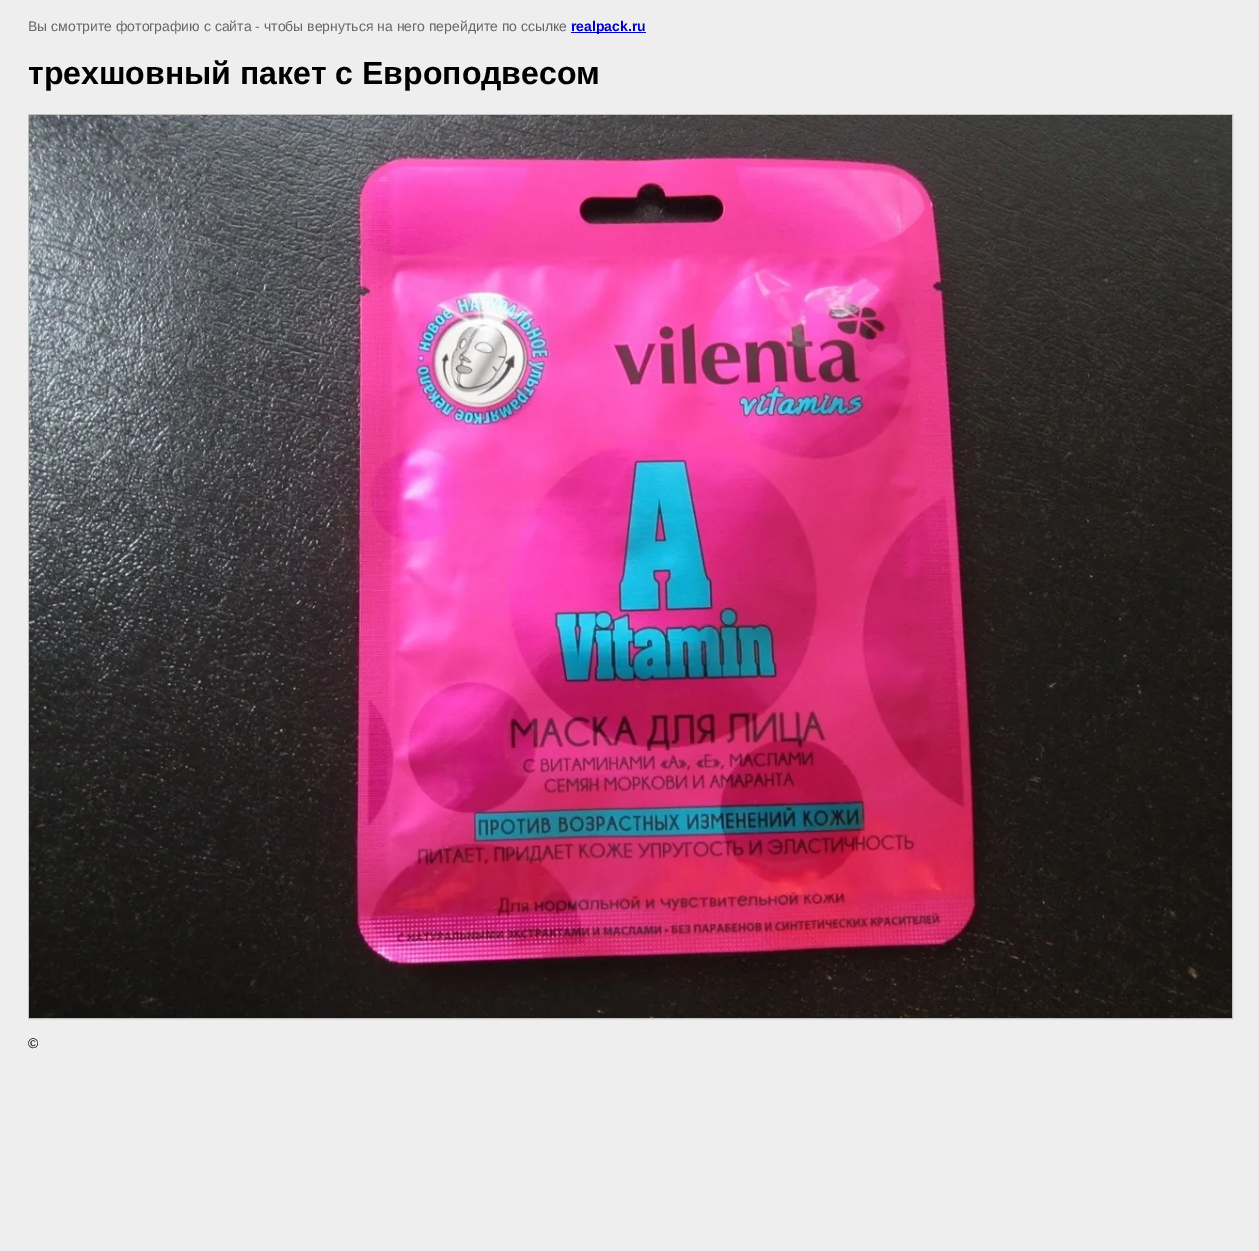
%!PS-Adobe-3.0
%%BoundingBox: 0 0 1259 1251
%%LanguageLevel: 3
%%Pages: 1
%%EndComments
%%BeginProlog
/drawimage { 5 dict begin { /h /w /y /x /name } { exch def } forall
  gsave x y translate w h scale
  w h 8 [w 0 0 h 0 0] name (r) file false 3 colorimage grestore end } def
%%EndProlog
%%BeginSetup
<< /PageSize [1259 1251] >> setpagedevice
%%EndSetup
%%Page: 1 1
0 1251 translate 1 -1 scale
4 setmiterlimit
0.933 setgray
0 0 1259 1251 rectfill
0 0 0.8 setrgbcolor
571 32 75 1 rectfill
0.753 setgray
28.5 114.5 1204 904 rectstroke
(images/1.raw) 29 115 1203 903 drawimage
/LiberationSans-Regular [14 0 0 -14 0 0] selectfont
0.4 setgray
28 31 moveto (Вы смотрите фотографию с сайта - чтобы вернуться на него перейдите по ссылке) show
/LiberationSans-Bold [14 0 0 -14 0 0] selectfont
0 0 0.8 setrgbcolor
571 31 moveto (realpack.ru) show
/LiberationSans-Bold [32 0 0 -32 0 0] selectfont
0 setgray
28 84 moveto (трехшовный пакет с Европодвесом) show
/LiberationSans-Regular [14 0 0 -14 0 0] selectfont
28 1048 moveto (©) show
showpage
%%EOF
